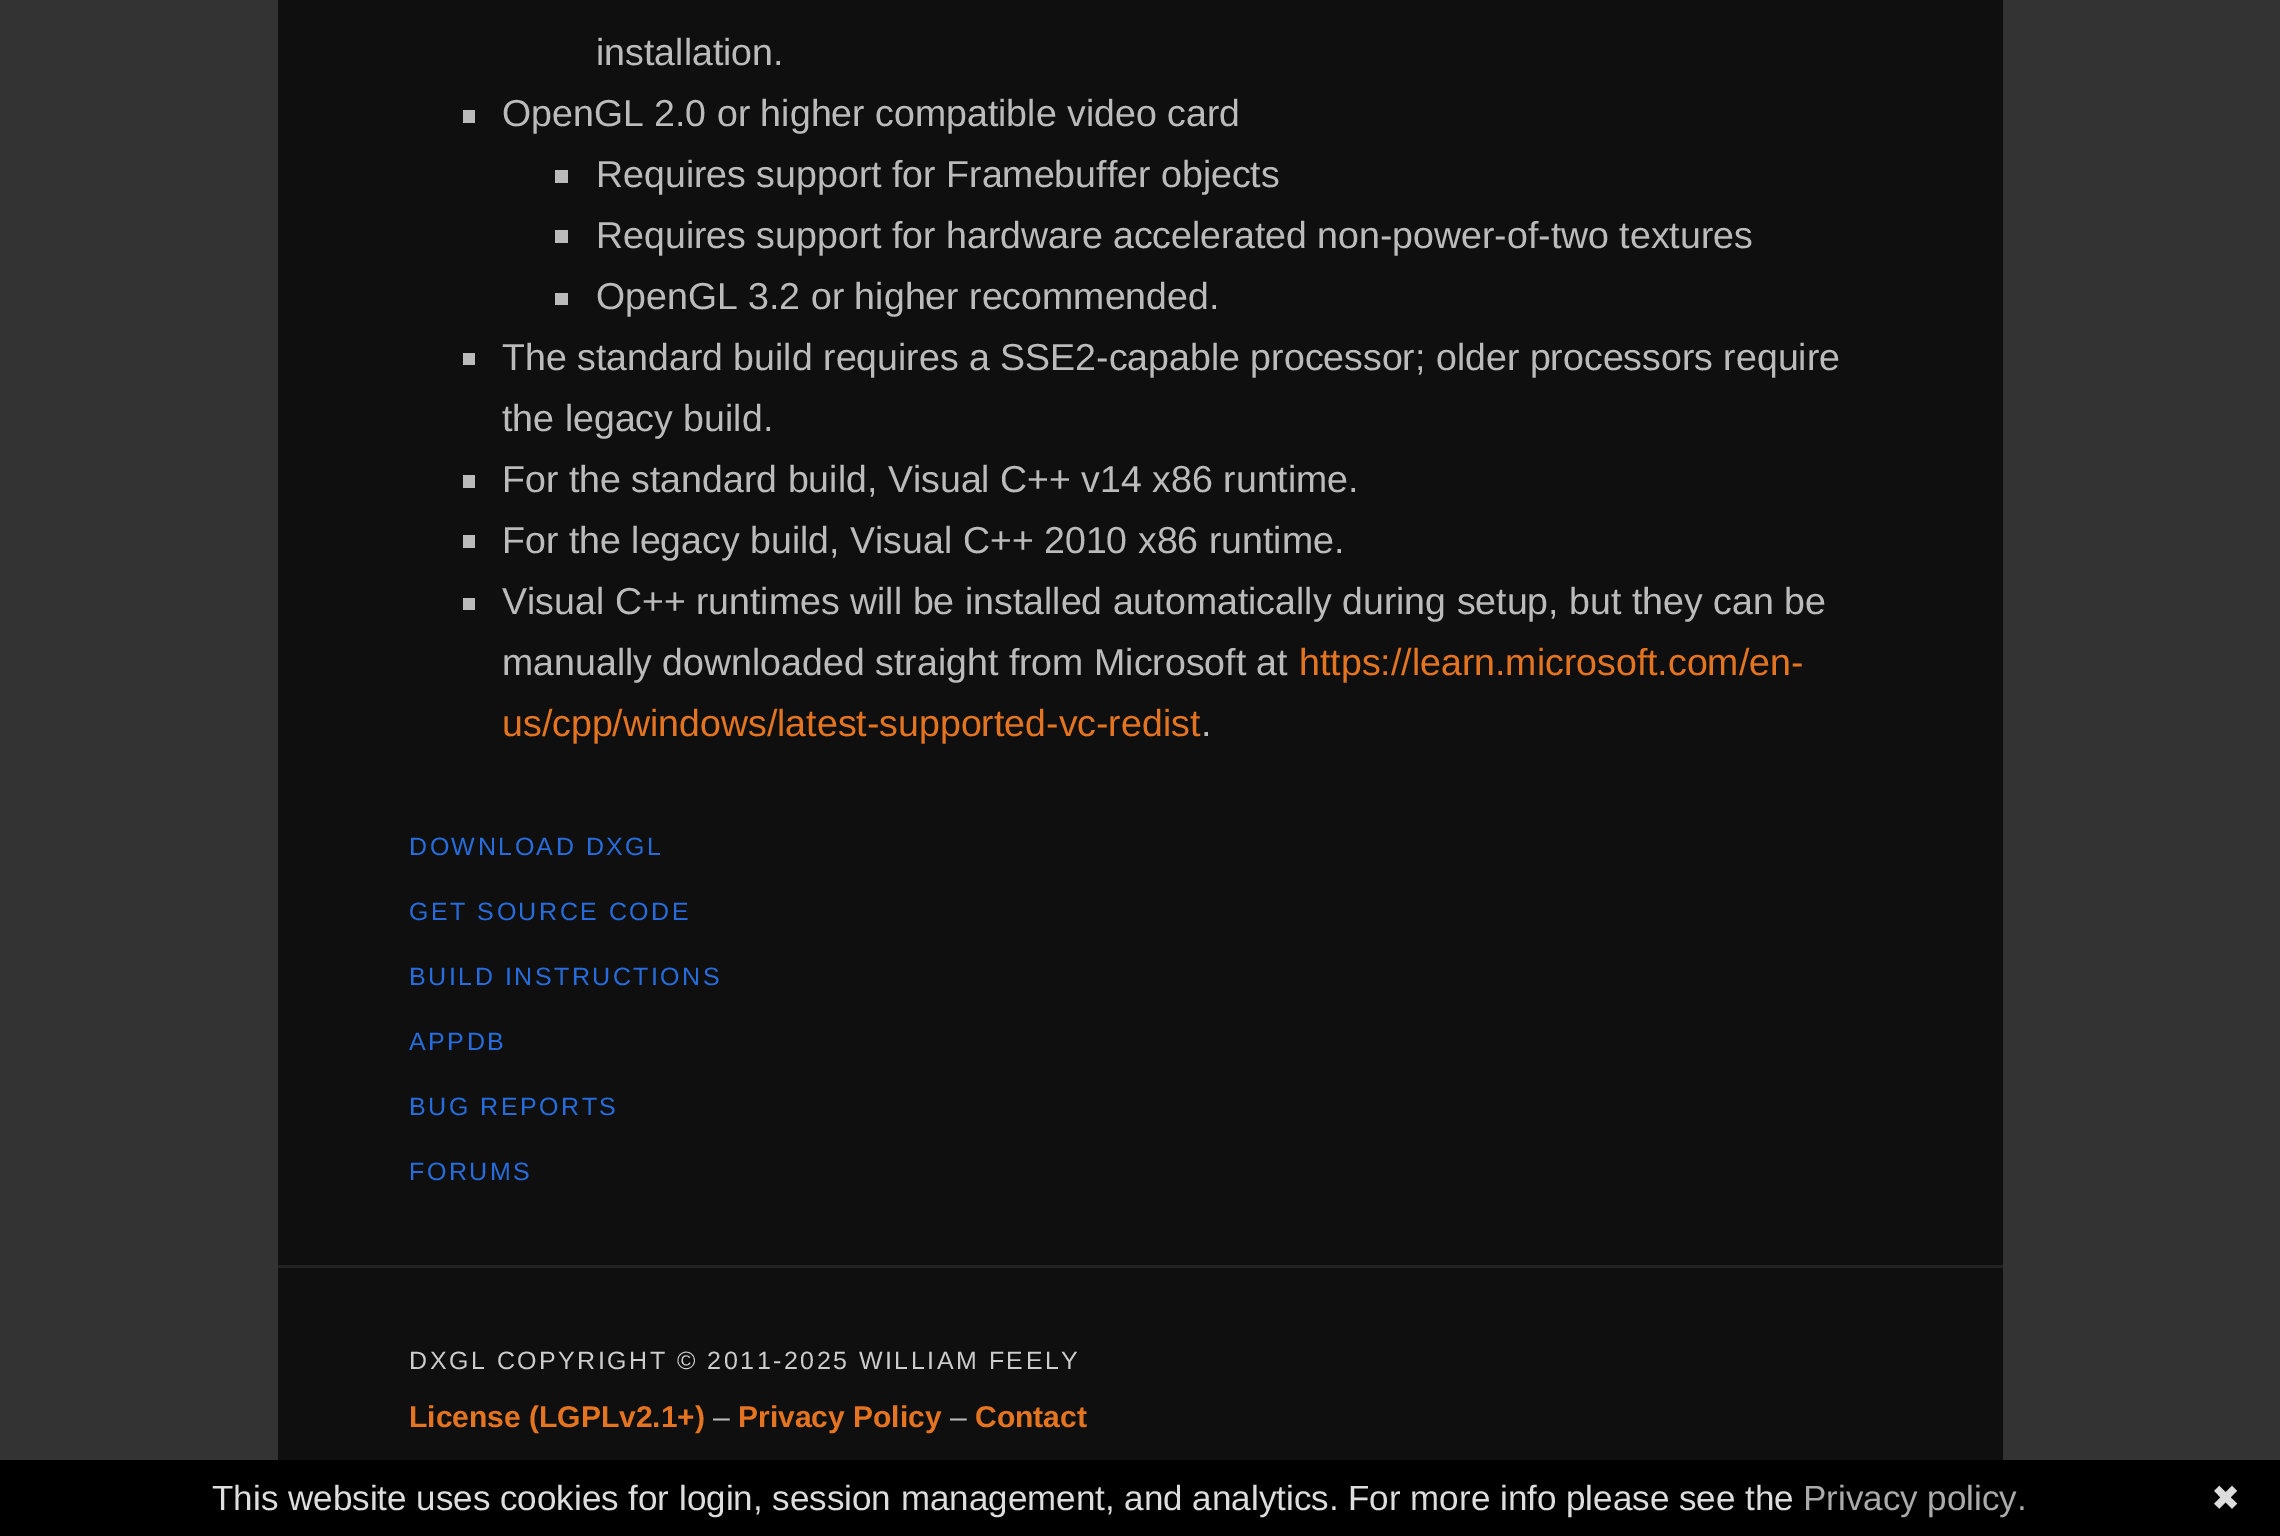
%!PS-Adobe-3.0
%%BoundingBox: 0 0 2280 1536
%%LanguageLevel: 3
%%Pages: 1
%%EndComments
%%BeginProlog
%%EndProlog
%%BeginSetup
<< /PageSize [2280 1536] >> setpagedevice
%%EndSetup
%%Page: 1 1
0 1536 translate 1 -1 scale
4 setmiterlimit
0.2 setgray
0 0 2280 1536 rectfill
0.059 setgray
278 0 1725 1460 rectfill
0.733 setgray
463 110 12 13 rectfill
555 170 13 13 rectfill
555 230 13 13 rectfill
555 293 13 12 rectfill
463 353 12 12 rectfill
463 475 12 13 rectfill
463 535 12 13 rectfill
463 598 12 12 rectfill
0.133 setgray
278 1265 1725 3 rectfill
0 setgray
0 1460 2280 76 rectfill
/LiberationSans-Regular [37.5 0 0 -37.5 0 0] selectfont
0.733 setgray
596 65 moveto (installation.) show
502 126 moveto (OpenGL 2.0 or higher compatible video card) show
596 187 moveto (Requires support for Framebuffer objects) show
596 248 moveto (Requires support for hardware accelerated non-power-of-two textures) show
596 309 moveto (OpenGL 3.2 or higher recommended.) show
502 370 moveto (The standard build requires a SSE2-capable processor; older processors require) show
502 431 moveto (the legacy build.) show
502 492 moveto (For the standard build, Visual C++ v14 x86 runtime.) show
502 553 moveto (For the legacy build, Visual C++ 2010 x86 runtime.) show
502 614 moveto (Visual C++ runtimes will be installed automatically during setup, but they can be) show
502 675 moveto (manually downloaded straight from Microsoft at) show
0.894 0.455 0.122 setrgbcolor
1299 675 moveto (https://learn.microsoft.com/en-) show
502 736 moveto (us/cpp/windows/latest-supported-vc-redist) show
0.733 setgray
1201 736 moveto (.) show
/LiberationSans-Regular [25 0 0 -25 0 0] selectfont
0.153 0.424 0.863 setrgbcolor
409 855 moveto 2.5 0 (DOWNLOAD DXGL) ashow
409 920 moveto 2.5 0 (GET SOURCE CODE) ashow
409 985 moveto 2.5 0 (BUILD INSTRUCTIONS) ashow
409 1050 moveto 2.5 0 (APPDB) ashow
409 1115 moveto 2.5 0 (BUG REPORTS) ashow
409 1180 moveto 2.5 0 (FORUMS) ashow
0.8 setgray
409 1369 moveto 2.5 0 (DXGL COPYRIGHT © 2011-2025 WILLIAM FEELY) ashow
/LiberationSans-Bold [30 0 0 -30 0 0] selectfont
0.894 0.455 0.122 setrgbcolor
409 1427 moveto (License \(LGPLv2.1+\)) show
/LiberationSans-Regular [30 0 0 -30 0 0] selectfont
0.733 setgray
713 1427 moveto (–) show
/LiberationSans-Bold [30 0 0 -30 0 0] selectfont
0.894 0.455 0.122 setrgbcolor
738 1427 moveto (Privacy Policy) show
/LiberationSans-Regular [30 0 0 -30 0 0] selectfont
0.733 setgray
950 1427 moveto (–) show
/LiberationSans-Bold [30 0 0 -30 0 0] selectfont
0.894 0.455 0.122 setrgbcolor
975 1427 moveto (Contact) show
/LiberationSans-Regular [35 0 0 -35 0 0] selectfont
0.867 setgray
212 1510 moveto (This website uses cookies for login, session management, and analytics. For more info please see the) show
0.667 setgray
1803 1510 moveto (Privacy policy.) show
/DejaVuSans-Regular [35 0 0 -35 0 0] selectfont
0.867 setgray
2211 1510 moveto (✖) show
showpage
%%EOF
